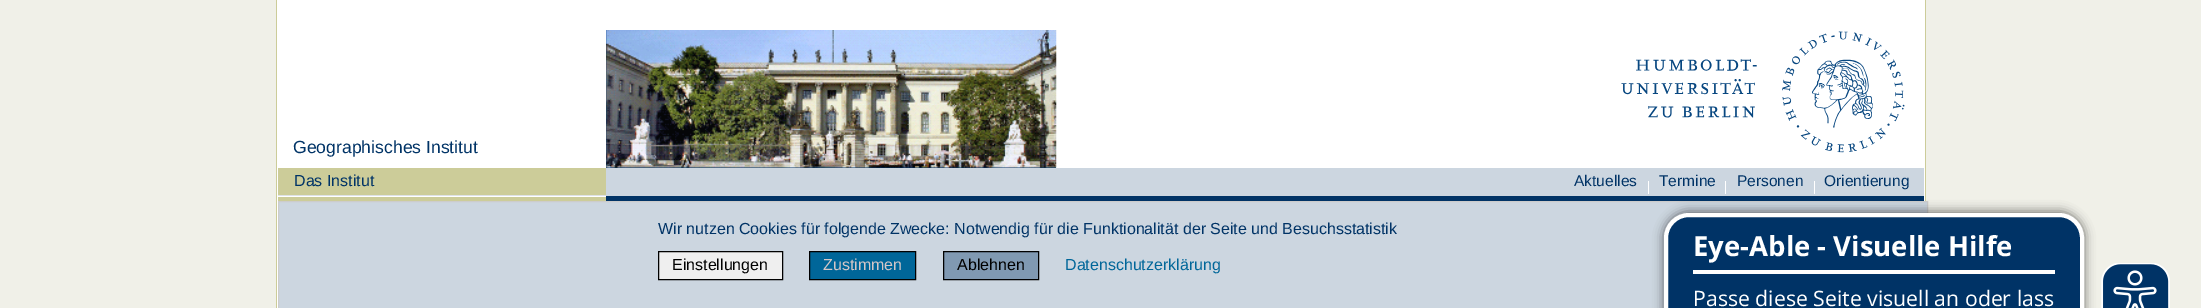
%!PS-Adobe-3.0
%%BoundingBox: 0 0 2201 308
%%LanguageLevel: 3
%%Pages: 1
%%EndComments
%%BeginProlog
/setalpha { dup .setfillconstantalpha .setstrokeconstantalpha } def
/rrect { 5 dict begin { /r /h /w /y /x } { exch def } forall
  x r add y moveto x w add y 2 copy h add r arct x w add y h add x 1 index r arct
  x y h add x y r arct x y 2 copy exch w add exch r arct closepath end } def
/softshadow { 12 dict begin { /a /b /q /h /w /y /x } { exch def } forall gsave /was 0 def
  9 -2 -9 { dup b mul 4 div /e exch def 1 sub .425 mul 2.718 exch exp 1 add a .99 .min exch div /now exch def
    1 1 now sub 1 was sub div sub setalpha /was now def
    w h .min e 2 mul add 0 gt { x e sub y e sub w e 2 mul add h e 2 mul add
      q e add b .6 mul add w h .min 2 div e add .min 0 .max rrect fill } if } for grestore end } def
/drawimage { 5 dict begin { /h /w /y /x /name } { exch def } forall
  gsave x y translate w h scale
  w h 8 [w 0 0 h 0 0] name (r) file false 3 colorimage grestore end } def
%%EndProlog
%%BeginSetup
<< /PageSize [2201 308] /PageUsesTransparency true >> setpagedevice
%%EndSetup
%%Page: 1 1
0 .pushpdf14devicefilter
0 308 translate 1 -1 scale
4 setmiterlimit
0.941 0.941 0.91 setrgbcolor
0 0 2201 308 rectfill
1 setgray
277 0 1648 308 rectfill
0 0.2 0.4 setrgbcolor
606 30 450 138 rectfill
(images/1.raw) 606 30 451 138 drawimage
(images/2.raw) 1621 31 284 122 drawimage
0.8 0.8 0.6 setrgbcolor
1925 0 1 201 rectfill
276 0 1 308 rectfill
278 168 328 27 rectfill
278 197 328 4 rectfill
0.871 0.886 0.902 setrgbcolor
278 195 328 1 rectfill
0.8 0.839 0.878 setrgbcolor
606 168 1318 28 rectfill
1 setgray
1648 181 1 13 rectfill
1725 181 1 13 rectfill
1814 181 1 13 rectfill
0 0.2 0.4 setrgbcolor
606 196 1318 5 rectfill
0.8 0.839 0.878 setrgbcolor
newpath 278.5 201.5 moveto 1927.5 201.5 lineto 1927.5 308.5 lineto 278.5 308.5 lineto closepath gsave fill grestore
0.8 setgray
stroke
0.937 setgray
newpath 658.5 251.5 moveto 782.5 251.5 lineto 782.5 279.5 lineto 658.5 279.5 lineto closepath gsave fill grestore
0 setgray
stroke
0 0.4 0.6 setrgbcolor
newpath 809.5 251.5 moveto 915.5 251.5 lineto 915.5 279.5 lineto 809.5 279.5 lineto closepath gsave fill grestore
0 setgray
stroke
0.502 0.6 0.698 setrgbcolor
newpath 943.5 251.5 moveto 1038.5 251.5 lineto 1038.5 279.5 lineto 943.5 279.5 lineto closepath gsave fill grestore
0 setgray
stroke
1663 211 422 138 26 5 0.5 softshadow
0 0.2 0.4 setrgbcolor
1666 215 416 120 23 rrect gsave fill grestore
1 setgray
4 setlinewidth
stroke
1693 270 362 4 rectfill
(images/3.raw) 2101 263 69 45 drawimage
/LiberationSans-Regular [17.6 0 0 -17.6 0 0] selectfont
0 0.2 0.4 setrgbcolor
293 153 moveto (Geographisches Institut) show
/LiberationSans-Regular [16 0 0 -16 0 0] selectfont
294 186 moveto (Das Institut) show
/LiberationSans-Regular [15.5 0 0 -15.5 0 0] selectfont
1574 186 moveto (Aktuelles) show
1659 186 moveto (Termine) show
1737 186 moveto (Personen) show
1824 186 moveto (Orientierung) show
/LiberationSans-Regular [16 0 0 -16 0 0] selectfont
658 234 moveto (Wir nutzen Cookies für folgende Zwecke: Notwendig für die Funktionalität der Seite und Besuchsstatistik) show
0 setgray
672 270 moveto (Einstellungen) show
0.835 0.78 0.78 setrgbcolor
823 270 moveto (Zustimmen) show
0 setgray
957 270 moveto (Ablehnen) show
0 0.4 0.6 setrgbcolor
1065 270 moveto (Datenschutzerklärung) show
/OpenSans-Bold [27.5 0 0 -27.5 0 0] selectfont
1 setgray
1693 256 moveto (Eye-Able - Visuelle Hilfe) show
/OpenSans-Regular [21.25 0 0 -21.25 0 0] selectfont
1693 306 moveto (Passe diese Seite visuell an oder lass) show
.poppdf14devicefilter showpage
%%EOF
